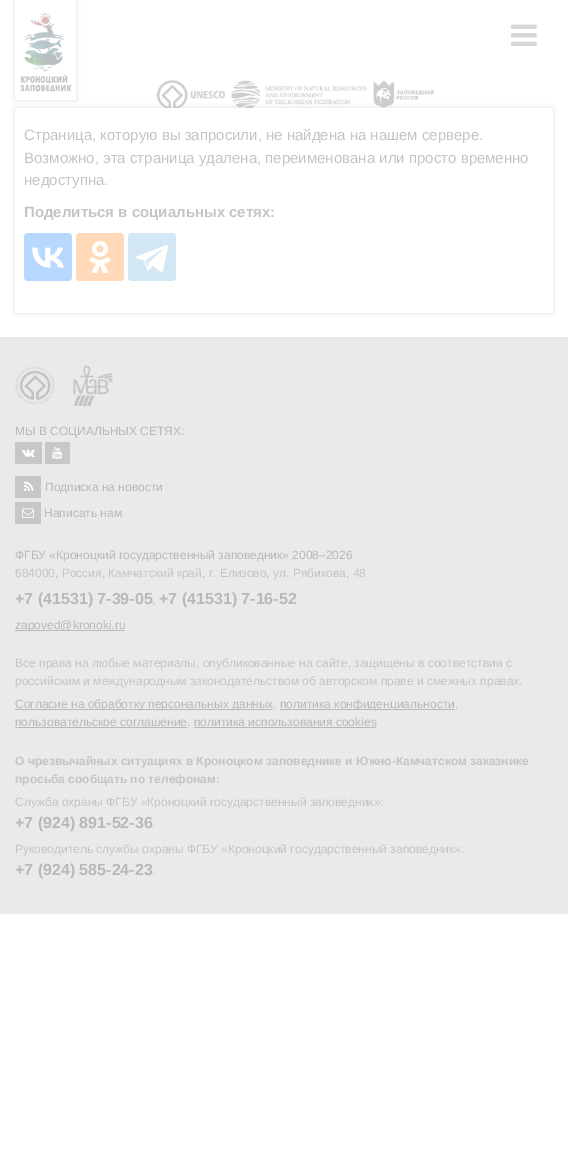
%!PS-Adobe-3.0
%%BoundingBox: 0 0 568 1149
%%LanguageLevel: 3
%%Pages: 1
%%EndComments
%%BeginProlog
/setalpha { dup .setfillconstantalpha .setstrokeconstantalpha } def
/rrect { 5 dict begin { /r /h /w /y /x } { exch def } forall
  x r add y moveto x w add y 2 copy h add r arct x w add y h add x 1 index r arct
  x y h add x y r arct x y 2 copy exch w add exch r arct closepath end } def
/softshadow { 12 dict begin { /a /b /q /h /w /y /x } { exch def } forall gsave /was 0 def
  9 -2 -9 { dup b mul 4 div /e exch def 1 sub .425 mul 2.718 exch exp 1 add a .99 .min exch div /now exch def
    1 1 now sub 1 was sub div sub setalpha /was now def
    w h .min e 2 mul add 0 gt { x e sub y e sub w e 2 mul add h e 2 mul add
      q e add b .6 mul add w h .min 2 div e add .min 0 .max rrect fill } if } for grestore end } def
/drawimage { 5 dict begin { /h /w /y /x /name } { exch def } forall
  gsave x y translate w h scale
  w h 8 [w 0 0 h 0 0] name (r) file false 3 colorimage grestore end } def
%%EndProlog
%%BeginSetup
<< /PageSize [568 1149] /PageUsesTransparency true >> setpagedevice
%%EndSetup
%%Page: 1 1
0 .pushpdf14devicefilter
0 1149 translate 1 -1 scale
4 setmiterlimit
1 setgray
0 0 568 1149 rectfill
(images/3.raw) 156 80 70 28 drawimage
(images/4.raw) 231 80 136 28 drawimage
(images/5.raw) 373 80 61 28 drawimage
0.722 setgray
15 108 538 205 0 2.5 0.5 softshadow
1 setgray
15 108 538 205 rectfill
gsave
newpath 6 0 moveto 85 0 lineto 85 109 lineto 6 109 lineto closepath 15 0 moveto 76 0 lineto 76 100 lineto 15 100 lineto closepath eoclip newpath
0.722 setgray
15 0 61 100 0 2.5 0.5 softshadow
grestore
(images/1.raw) 20 13 52 79 drawimage
(images/2.raw) 511 24 26 22 drawimage
0.722 0.851 1 setrgbcolor
24 233 48 48 4 rrect fill
(images/6.raw) 32 247 33 21 drawimage
1 0.851 0.722 setrgbcolor
76 233 48 48 4 rrect fill
(images/7.raw) 89 241 22 32 drawimage
0.831 0.906 0.961 setrgbcolor
128 233 48 48 4 rrect fill
(images/8.raw) 136 245 32 27 drawimage
0.918 setgray
0 337 568 577 rectfill
(images/9.raw) 15 366 40 39 drawimage
(images/10.raw) 73 365 40 41 drawimage
0.78 setgray
15 442 27 22 rectfill
(images/11.raw) 22 449 13 8 drawimage
45 442 25 22 rectfill
(images/12.raw) 52 446 11 13 drawimage
15 476 26 22 rectfill
(images/13.raw) 24 481 10 10 drawimage
15 502 26 22 rectfill
(images/14.raw) 22 508 12 10 drawimage
0.722 setgray
15 630 110 1 rectfill
15 709 258 1 rectfill
280 709 175 1 rectfill
15 727 172 1 rectfill
194 727 182 1 rectfill
/LiberationSans-Regular [15 0 0 -15 0 0] selectfont
0.769 setgray
24 140 moveto (Страница, которую вы запросили, не найдена на нашем сервере.) show
24 163 moveto (Возможно, эта страница удалена, переименована или просто временно) show
24 185 moveto (недоступна.) show
/LiberationSans-Bold [15 0 0 -15 0 0] selectfont
24 217 moveto (Поделиться в социальных сетях:) show
/LiberationSans-Regular [12 0 0 -12 0 0] selectfont
0.722 setgray
15 435 moveto (МЫ В СОЦИАЛЬНЫХ СЕТЯХ:) show
45 491 moveto (Подписка на новости) show
44 517 moveto (Написать нам) show
15 559 moveto (ФГБУ «Кроноцкий государственный заповедник» 2008–2026) show
0.769 setgray
15 577 moveto (684000, Россия, Камчатский край, г. Елизово, ул. Рябикова, 48) show
/LiberationSans-Bold [16 0 0 -16 0 0] selectfont
0.722 setgray
15 604 moveto (+7 \(41531\) 7-39-05) show
/LiberationSans-Regular [12 0 0 -12 0 0] selectfont
0.769 setgray
152 604 moveto (,) show
/LiberationSans-Bold [16 0 0 -16 0 0] selectfont
0.722 setgray
159 604 moveto (+7 \(41531\) 7-16-52) show
/LiberationSans-Regular [12 0 0 -12 0 0] selectfont
15 629 moveto (zapoved@kronoki.ru) show
0.769 setgray
15 667 moveto (Все права на любые материалы, опубликованные на сайте, защищены в соответствии с) show
15 685 moveto (российским и международным законодательством об авторском праве и смежных правах.) show
0.722 setgray
15 708 moveto (Согласие на обработку персональных данных) show
0.769 setgray
273 708 moveto (,) show
0.722 setgray
280 708 moveto (политика конфиденциальности) show
0.769 setgray
455 708 moveto (,) show
0.722 setgray
15 726 moveto (пользовательское соглашение) show
0.769 setgray
187 726 moveto (,) show
0.722 setgray
194 726 moveto (политика использования cookies) show
/LiberationSans-Bold [12 0 0 -12 0 0] selectfont
0.769 setgray
15 765 moveto (О чрезвычайных ситуациях в Кроноцком заповеднике и Южно-Камчатском заказнике) show
15 783 moveto (просьба сообщать по телефонам:) show
/LiberationSans-Regular [12 0 0 -12 0 0] selectfont
15 806 moveto (Служба охраны ФГБУ «Кроноцкий государственный заповедник»:) show
/LiberationSans-Bold [16 0 0 -16 0 0] selectfont
0.722 setgray
15 828 moveto (+7 \(924\) 891-52-36) show
/LiberationSans-Regular [12 0 0 -12 0 0] selectfont
0.769 setgray
152 828 moveto (.) show
15 853 moveto (Руководитель службы охраны ФГБУ «Кроноцкий государственный заповедник»:) show
/LiberationSans-Bold [16 0 0 -16 0 0] selectfont
0.722 setgray
15 875 moveto (+7 \(924\) 585-24-23) show
/LiberationSans-Regular [12 0 0 -12 0 0] selectfont
0.769 setgray
152 875 moveto (.) show
.poppdf14devicefilter showpage
%%EOF
